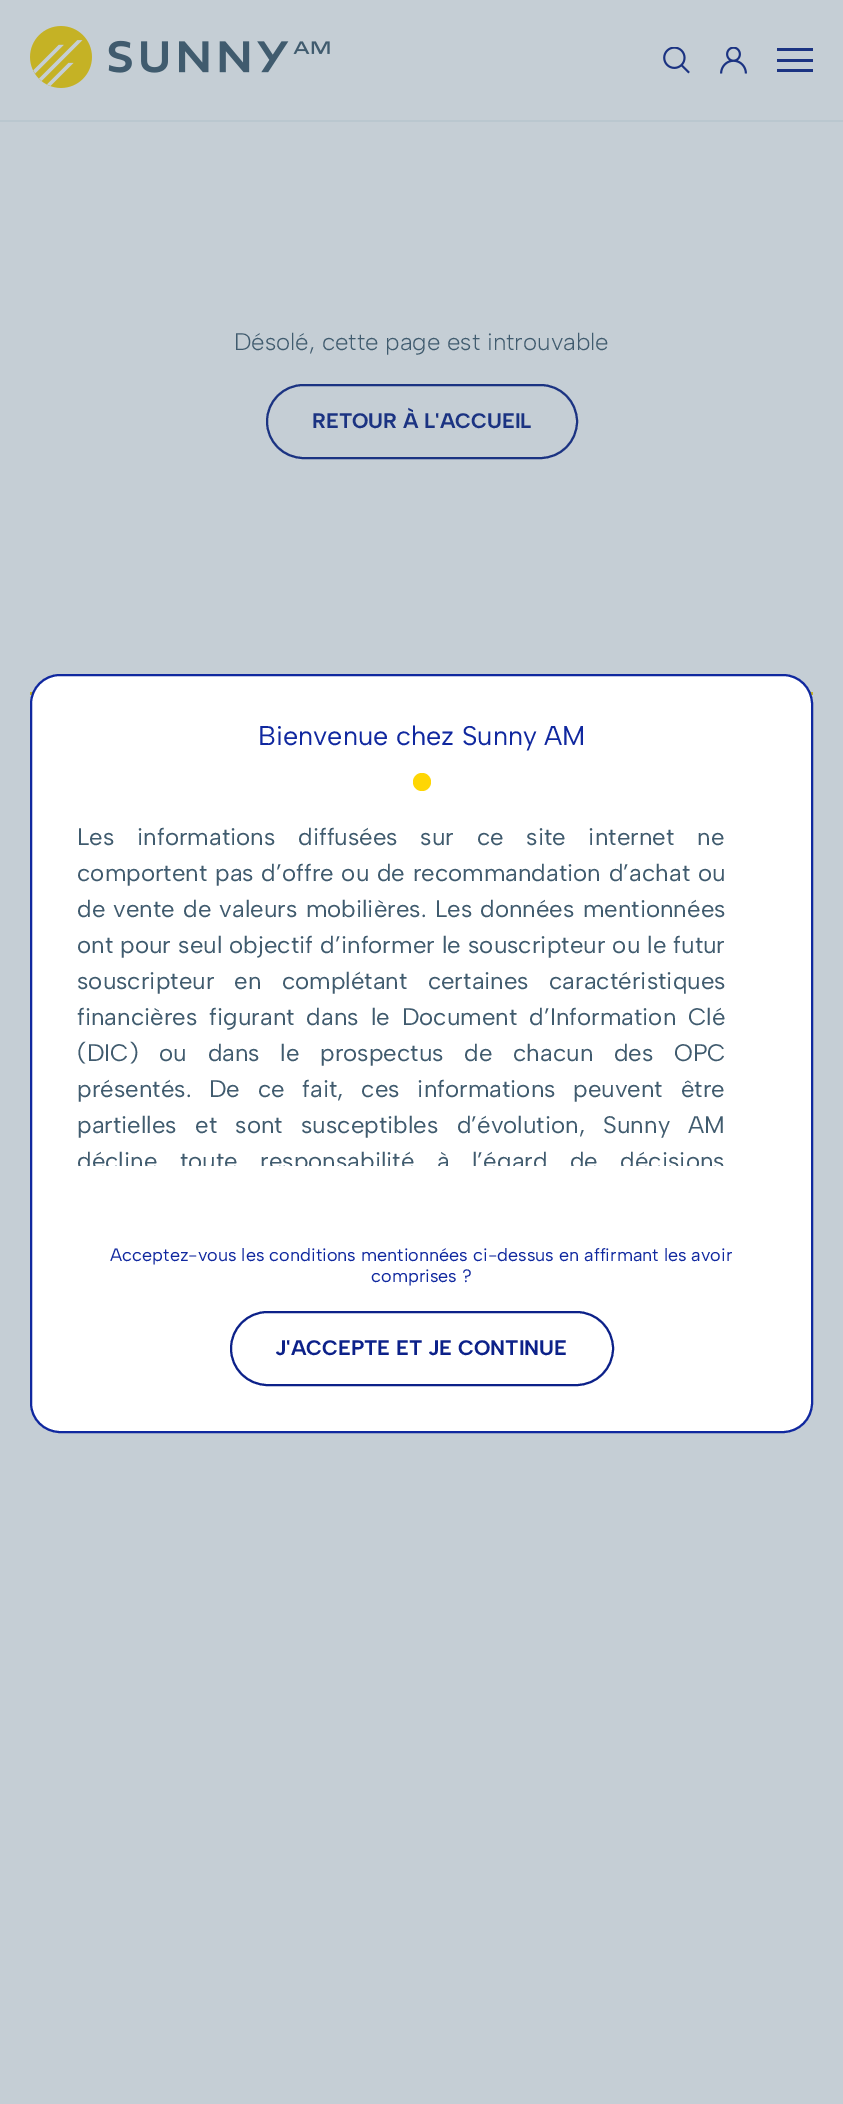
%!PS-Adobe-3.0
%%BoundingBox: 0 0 843 2104
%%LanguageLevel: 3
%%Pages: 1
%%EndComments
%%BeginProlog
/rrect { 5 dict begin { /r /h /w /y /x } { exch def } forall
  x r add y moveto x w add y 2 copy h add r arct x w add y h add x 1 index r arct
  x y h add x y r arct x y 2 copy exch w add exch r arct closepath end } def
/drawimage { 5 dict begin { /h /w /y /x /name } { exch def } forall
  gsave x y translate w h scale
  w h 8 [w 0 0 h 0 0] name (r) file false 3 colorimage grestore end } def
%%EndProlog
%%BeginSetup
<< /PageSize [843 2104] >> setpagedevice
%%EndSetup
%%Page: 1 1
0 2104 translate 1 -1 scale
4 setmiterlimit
0.773 0.808 0.835 setrgbcolor
0 0 843 2104 rectfill
(images/1.raw) 30 26 300 62 drawimage
(images/2.raw) 663 47 27 27 drawimage
(images/3.raw) 720 47 27 27 drawimage
0.106 0.2 0.51 setrgbcolor
777 48 36 3 rectfill
777 59 36 3 rectfill
777 69 36 3 rectfill
0.729 0.78 0.812 setrgbcolor
0 120 843 2 rectfill
0.106 0.2 0.51 setrgbcolor
2 setlinewidth
267 385 310 73 36.5 rrect stroke
0.773 0.698 0.145 setrgbcolor
30 692 783 3 rectfill
1 setgray
31 675 781 757 29 rrect gsave fill grestore
0.063 0.157 0.624 setrgbcolor
stroke
0.996 0.839 0.016 setrgbcolor
newpath 422 782 9 0 360 arc closepath fill
0.047 0.129 0.537 setrgbcolor
231 1312 382 73 36.5 rrect stroke
/AlbertSans-Light [24 0 0 -24 0 0] selectfont
0.251 0.357 0.431 setrgbcolor
234 350 moveto (Désolé, cette page est introuvable) show
/AlbertSans-Bold [21 0 0 -21 0 0] selectfont
0.106 0.2 0.51 setrgbcolor
312 428 moveto (RETOUR À L'ACCUEIL) show
/AlbertSans-Regular [27 0 0 -27 0 0] selectfont
0.063 0.157 0.624 setrgbcolor
258 745 moveto (Bienvenue chez Sunny AM) show
/AlbertSans-Regular [24 0 0 -24 0 0] selectfont
0.251 0.357 0.431 setrgbcolor
77 845 moveto 16 0 32 (Les informations diffusées sur ce site internet ne) widthshow
77 881 moveto 1 0 32 (comportent pas d’offre ou de recommandation d’achat ou) widthshow
77 917 moveto 1.5 0 32 (de vente de valeurs mobilières. Les données mentionnées) widthshow
77 953 moveto 0.4 0 32 (ont pour seul objectif d’informer le souscripteur ou le futur) widthshow
77 989 moveto 13.5 0 32 (souscripteur en complétant certaines caractéristiques) widthshow
77 1025 moveto 5.25 0 32 (financières figurant dans le Document d’Information Clé) widthshow
77 1061 moveto 14 0 32 (\(DIC\) ou dans le prospectus de chacun des OPC) widthshow
77 1097 moveto 11 0 32 (présentés. De ce fait, ces informations peuvent être) widthshow
77 1133 moveto 11.5 0 32 (partielles et sont susceptibles d’évolution, Sunny AM) widthshow
gsave
77 821 690 345 rectclip
77 1169 moveto 15.75 0 32 (décline toute responsabilité à l’égard de décisions) widthshow
grestore
/AlbertSans-Regular [18 0 0 -18 0 0] selectfont
0.063 0.157 0.624 setrgbcolor
110 1261 moveto (Acceptez-vous les conditions mentionnées ci-dessus en affirmant les avoir) show
371 1282 moveto (comprises ?) show
/AlbertSans-Bold [21 0 0 -21 0 0] selectfont
0.047 0.129 0.537 setrgbcolor
275 1355 moveto (J'ACCEPTE ET JE CONTINUE) show
showpage
%%EOF
